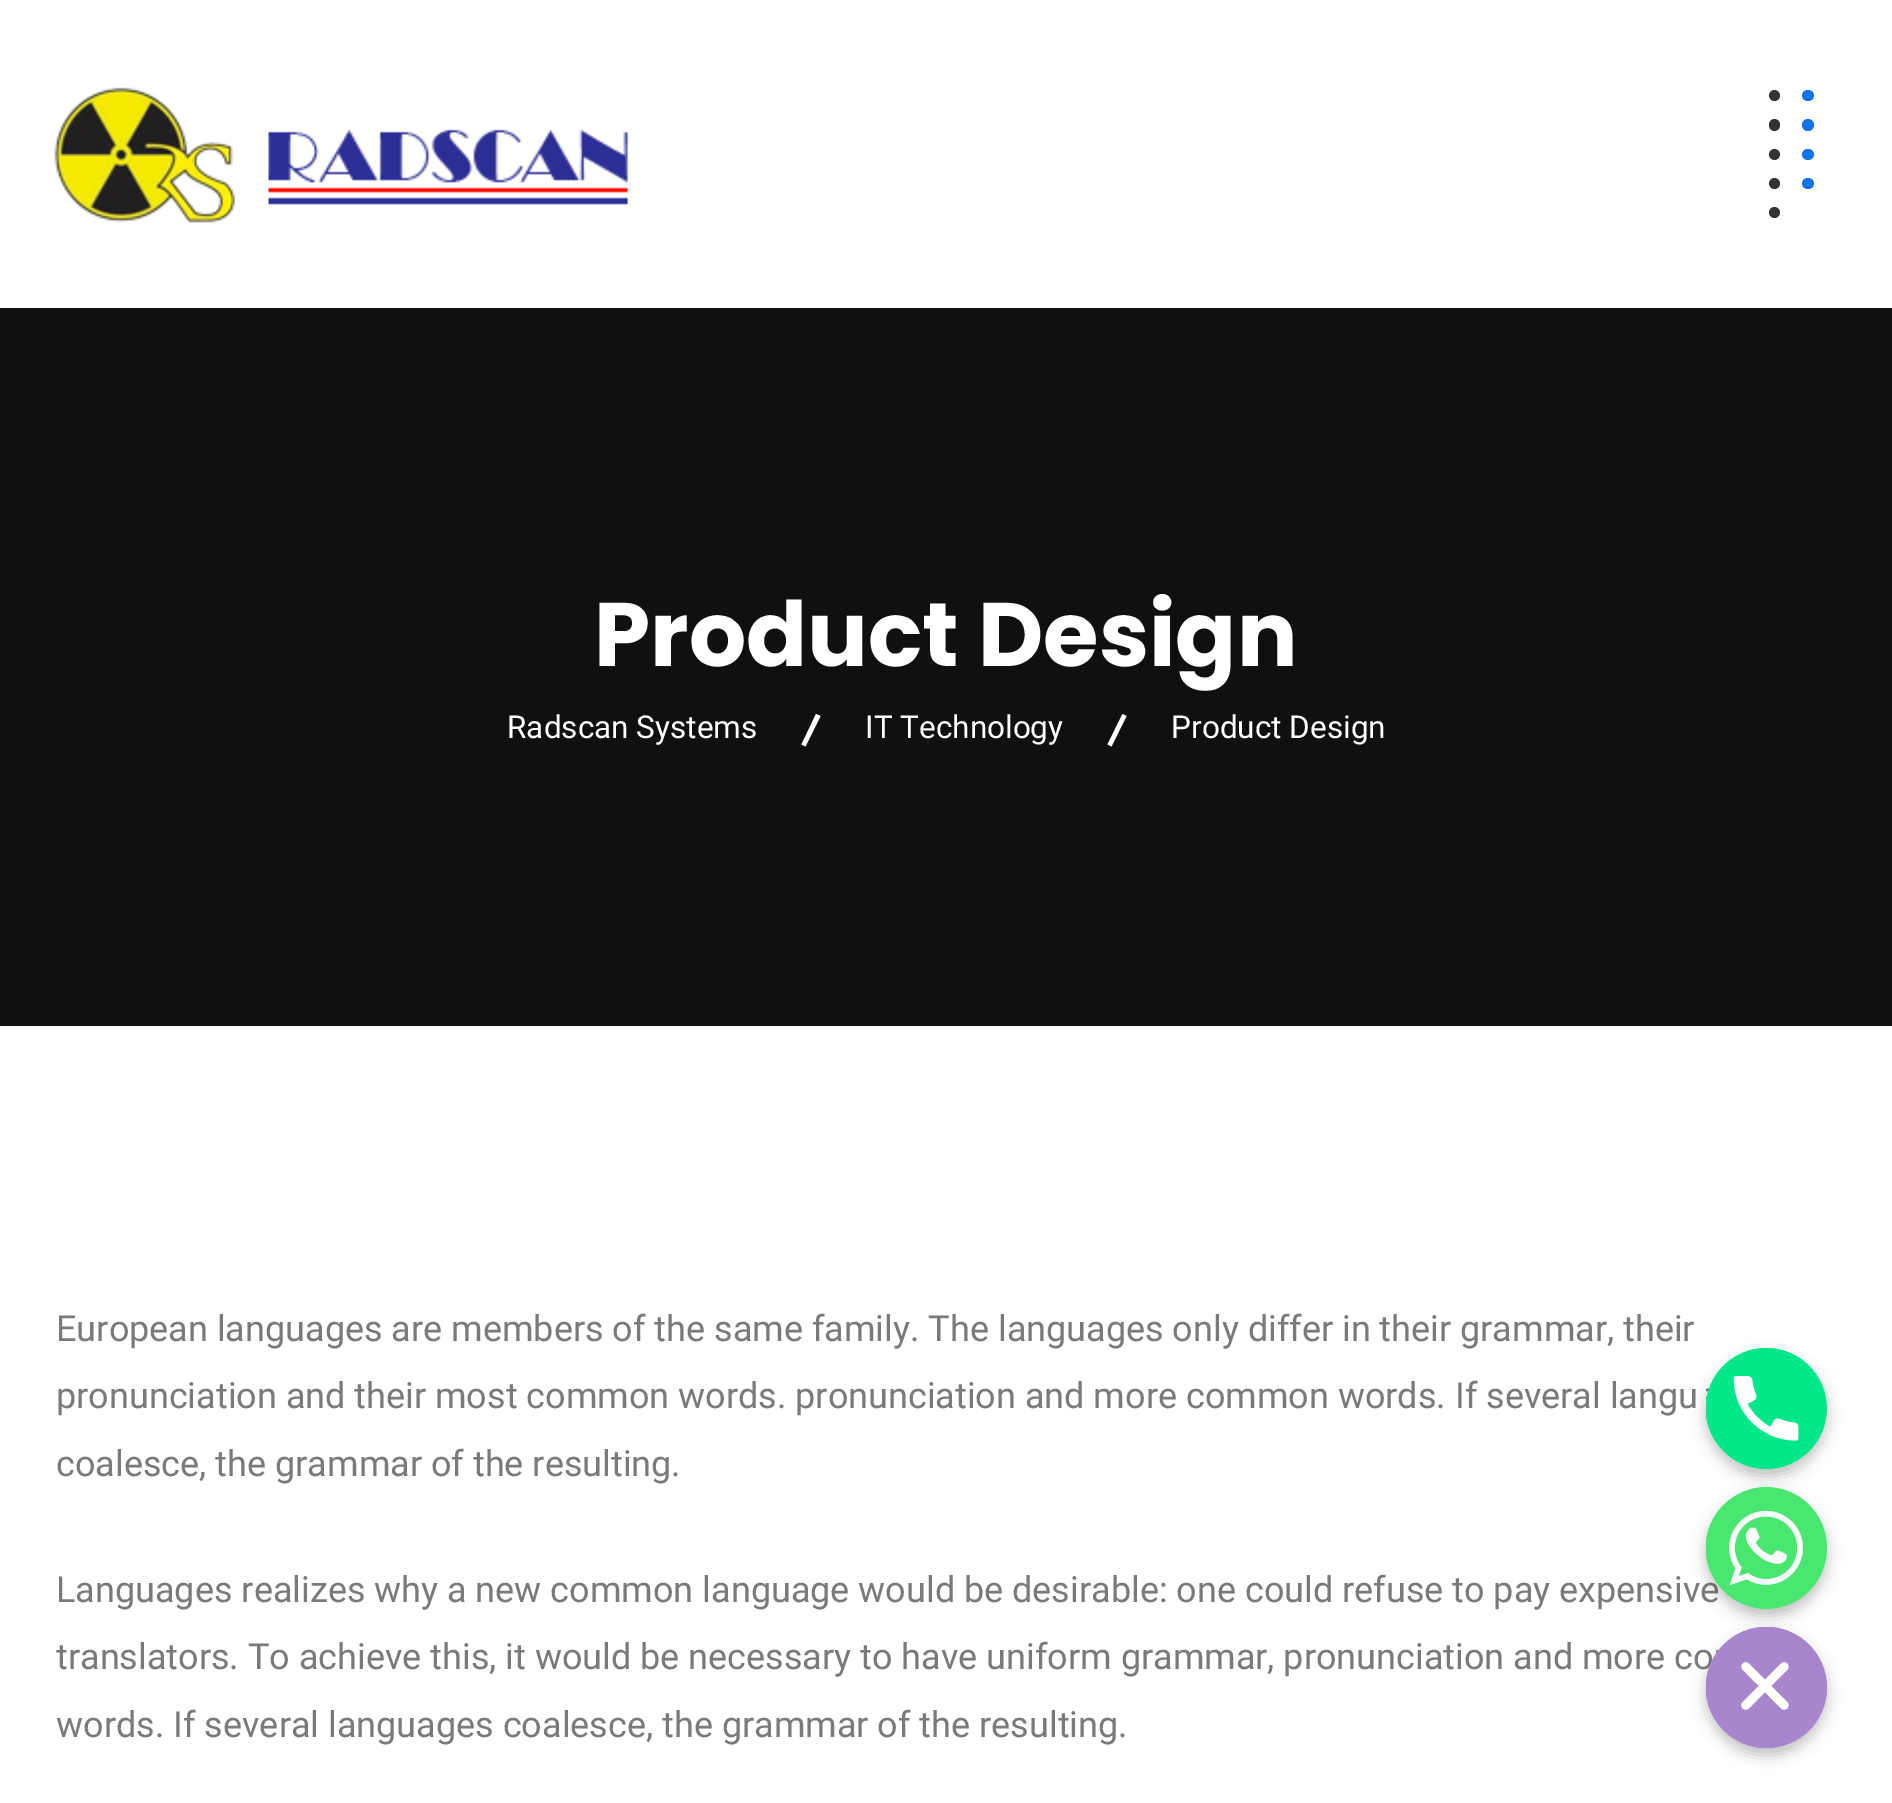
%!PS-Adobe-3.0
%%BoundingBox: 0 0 1892 1803
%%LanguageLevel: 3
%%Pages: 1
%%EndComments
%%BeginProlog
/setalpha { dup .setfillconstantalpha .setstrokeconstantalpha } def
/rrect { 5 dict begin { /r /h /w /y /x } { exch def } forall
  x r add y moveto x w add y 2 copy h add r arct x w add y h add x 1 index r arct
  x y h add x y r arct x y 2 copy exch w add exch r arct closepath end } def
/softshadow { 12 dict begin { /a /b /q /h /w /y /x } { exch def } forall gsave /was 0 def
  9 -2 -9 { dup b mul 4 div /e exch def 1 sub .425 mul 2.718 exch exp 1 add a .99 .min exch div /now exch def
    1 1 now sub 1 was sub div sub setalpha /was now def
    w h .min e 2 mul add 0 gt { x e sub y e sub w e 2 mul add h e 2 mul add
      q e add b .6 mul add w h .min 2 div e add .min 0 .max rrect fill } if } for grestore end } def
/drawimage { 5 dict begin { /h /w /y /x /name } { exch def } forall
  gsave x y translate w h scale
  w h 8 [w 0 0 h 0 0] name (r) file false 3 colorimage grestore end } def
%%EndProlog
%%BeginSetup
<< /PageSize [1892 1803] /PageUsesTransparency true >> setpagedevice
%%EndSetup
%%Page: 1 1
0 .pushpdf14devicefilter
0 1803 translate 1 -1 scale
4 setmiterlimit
1 setgray
0 0 1892 1803 rectfill
(images/1.raw) 54 87 575 136 drawimage
0.2 setgray
newpath 1774.5 95.5 5.5 0 360 arc closepath fill
0.071 0.451 0.922 setrgbcolor
1802 90 12 11 5.5 rrect fill
0.2 setgray
1769 119 11 12 5.5 rrect fill
0.071 0.451 0.922 setrgbcolor
newpath 1808 125 6 0 360 arc closepath fill
0.2 setgray
newpath 1774.5 154.5 5.5 0 360 arc closepath fill
0.071 0.451 0.922 setrgbcolor
1802 149 12 11 5.5 rrect fill
0.2 setgray
newpath 1774.5 183.5 5.5 0 360 arc closepath fill
0.071 0.451 0.922 setrgbcolor
1802 178 12 11 5.5 rrect fill
0.2 setgray
newpath 1774.5 212.5 5.5 0 360 arc closepath fill
0.063 setgray
0 308 1892 718 rectfill
1 setgray
newpath 816 714 moveto 820.5 716 lineto 805.5 746.5 lineto 801.5 744.5 lineto closepath fill
newpath 1122.5 714 moveto 1126.5 716 lineto 1111.5 746.5 lineto 1107.5 744.5 lineto closepath fill
0 setgray
1706 1355 121 121 60.5 7 0.25 softshadow
0.012 0.906 0.545 setrgbcolor
newpath 1766.5 1408.5 60.5 0 360 arc closepath fill
(images/2.raw) 1706 1348 121 121 drawimage
0 setgray
1706 1494 121 122 60.5 7 0.25 softshadow
1706 1634 121 121 60.5 7 0.25 softshadow
/Poppins-Bold [90 0 0 -90 0 0] selectfont
1 setgray
594 666 moveto (Product Design) show
/Roboto-Regular [31.5 0 0 -31.5 0 0] selectfont
507 738 moveto (Radscan Systems) show
865 738 moveto (IT Technology) show
1171 738 moveto (Product Design) show
/Roboto-Regular [36 0 0 -36 0 0] selectfont
0.478 setgray
56 1341 moveto (European languages are members of the same family. The languages only differ in their grammar, their) show
56 1408 moveto (pronunciation and their most common words. pronunciation and more common words. If several langu) show
56 1476 moveto (coalesce, the grammar of the resulting.) show
56 1602 moveto (Languages realizes why a new common language would be desirable: one could refuse to pay expensive) show
56 1669 moveto (translators. To achieve this, it would be necessary to have uniform grammar, pronunciation and more co) show
56 1737 moveto (words. If several languages coalesce, the grammar of the resulting.) show
0.286 0.902 0.439 setrgbcolor
1706 1487 121 122 60.5 rrect fill
(images/3.raw) 1706 1487 121 122 drawimage
(images/4.raw) 1706 1627 121 121 drawimage
.poppdf14devicefilter showpage
%%EOF
